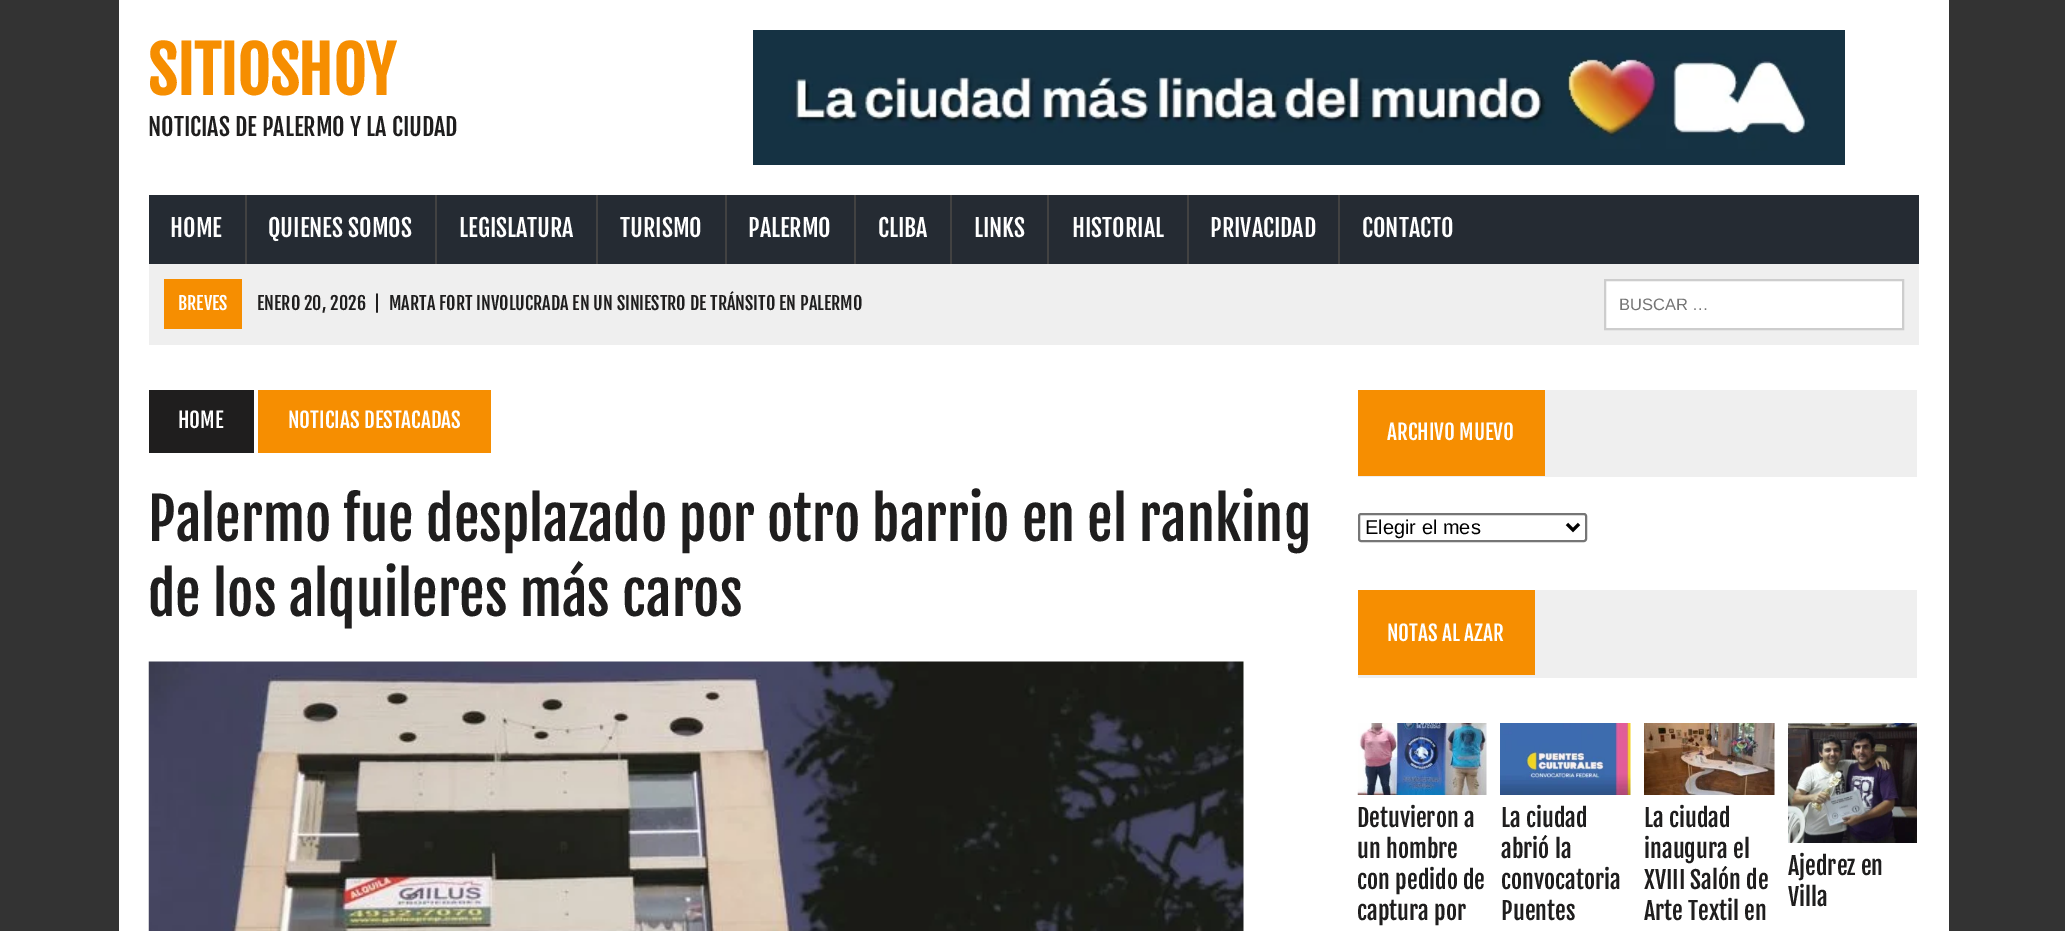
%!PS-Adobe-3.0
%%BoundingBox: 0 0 2065 931
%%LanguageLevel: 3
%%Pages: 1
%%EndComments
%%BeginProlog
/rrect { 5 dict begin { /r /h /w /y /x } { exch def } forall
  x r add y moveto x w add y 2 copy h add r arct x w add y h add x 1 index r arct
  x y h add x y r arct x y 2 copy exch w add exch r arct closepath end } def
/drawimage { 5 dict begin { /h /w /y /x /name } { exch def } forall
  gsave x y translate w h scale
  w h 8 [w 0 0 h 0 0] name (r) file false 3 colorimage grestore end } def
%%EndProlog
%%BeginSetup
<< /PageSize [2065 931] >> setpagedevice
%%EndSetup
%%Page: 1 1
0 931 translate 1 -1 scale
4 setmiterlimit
0.2 setgray
0 0 2065 931 rectfill
1 setgray
119 0 1830 931 rectfill
(images/1.raw) 753 30 1092 135 drawimage
0.145 0.169 0.2 setrgbcolor
149 195 1770 69 rectfill
0.259 setgray
245 195 2 69 rectfill
435 195 2 69 rectfill
596 195 2 69 rectfill
725 195 2 69 rectfill
854 195 2 69 rectfill
950 195 2 69 rectfill
1047 195 2 69 rectfill
1187 195 2 69 rectfill
1338 195 2 69 rectfill
0.937 setgray
149 264 1770 81 rectfill
0.965 0.557 0.004 setrgbcolor
164 279 78 50 rectfill
1 setgray
newpath 1605 280 moveto 1903 280 lineto 1903 329 lineto 1605 329 lineto closepath gsave fill grestore
0.804 setgray
2 setlinewidth
stroke
0.122 0.118 0.118 setrgbcolor
149 390 105 63 rectfill
0.965 0.557 0.004 setrgbcolor
258 390 233 63 rectfill
(images/2.raw) 148 661 1096 270 drawimage
0.937 setgray
1358 390 559 87 rectfill
0.965 0.557 0.004 setrgbcolor
1358 390 187 86 rectfill
0.463 setgray
1359 514 227 27 2 rrect stroke
0 setgray
3 setlinewidth
newpath 1567 524 moveto 1573 530 lineto 1579 524 lineto stroke
0.937 setgray
1358 590 559 88 rectfill
0.965 0.557 0.004 setrgbcolor
1358 590 177 85 rectfill
(images/3.raw) 1357 723 130 72 drawimage
(images/4.raw) 1500 723 131 72 drawimage
(images/5.raw) 1644 723 131 72 drawimage
(images/6.raw) 1788 723 129 120 drawimage
/FjallaOne-Bold [63 0 0 -63 0 0] selectfont
148 95 moveto (SITIOSHOY) show
/FjallaOne-Regular [24 0 0 -24 0 0] selectfont
0.122 0.118 0.118 setrgbcolor
148 136 moveto (NOTICIAS DE PALERMO Y LA CIUDAD) show
1 setgray
170 237 moveto (HOME) show
268 237 moveto (QUIENES SOMOS) show
459 237 moveto (LEGISLATURA) show
620 237 moveto (TURISMO) show
748 237 moveto (PALERMO) show
878 237 moveto (CLIBA) show
974 237 moveto (LINKS) show
1072 237 moveto (HISTORIAL) show
1210 237 moveto (PRIVACIDAD) show
1362 237 moveto (CONTACTO) show
/FjallaOne-Regular [18 0 0 -18 0 0] selectfont
178 310 moveto (BREVES) show
0.122 0.118 0.118 setrgbcolor
257 310 moveto (ENERO 20, 2026) show
374 310 moveto (|) show
389 310 moveto (MARTA FORT INVOLUCRADA EN UN SINIESTRO DE TRÁNSITO EN PALERMO) show
/LiberationSans-Regular [16.5 0 0 -16.5 0 0] selectfont
0.459 setgray
1619 310 moveto (BUSCAR …) show
/FjallaOne-Regular [21 0 0 -21 0 0] selectfont
1 setgray
178 428 moveto (HOME) show
288 428 moveto (NOTICIAS DESTACADAS) show
/FjallaOne-Regular [57 0 0 -57 0 0] selectfont
0.122 0.118 0.118 setrgbcolor
148 541 moveto (Palermo fue desplazado por otro barrio en el ranking) show
148 616 moveto (de los alquileres más caros) show
/FjallaOne-Regular [21 0 0 -21 0 0] selectfont
1 setgray
1387 440 moveto (ARCHIVO MUEVO) show
/LiberationSans-Regular [20 0 0 -20 0 0] selectfont
0 setgray
1365 534 moveto (Elegir el mes) show
/FjallaOne-Regular [21 0 0 -21 0 0] selectfont
1 setgray
1387 641 moveto (NOTAS AL AZAR) show
/FjallaOne-Regular [24 0 0 -24 0 0] selectfont
0.122 0.118 0.118 setrgbcolor
1357 827 moveto (Detuvieron a) show
1357 858 moveto (un hombre) show
1357 889 moveto (con pedido de) show
1357 920 moveto (captura por) show
1501 827 moveto (La ciudad) show
1501 858 moveto (abrió la) show
1501 889 moveto (convocatoria) show
1501 920 moveto (Puentes) show
1644 827 moveto (La ciudad) show
1644 858 moveto (inaugura el) show
1644 889 moveto (XVIII Salón de) show
1644 920 moveto (Arte Textil en) show
1788 875 moveto (Ajedrez en) show
1788 906 moveto (Villa) show
showpage
%%EOF
